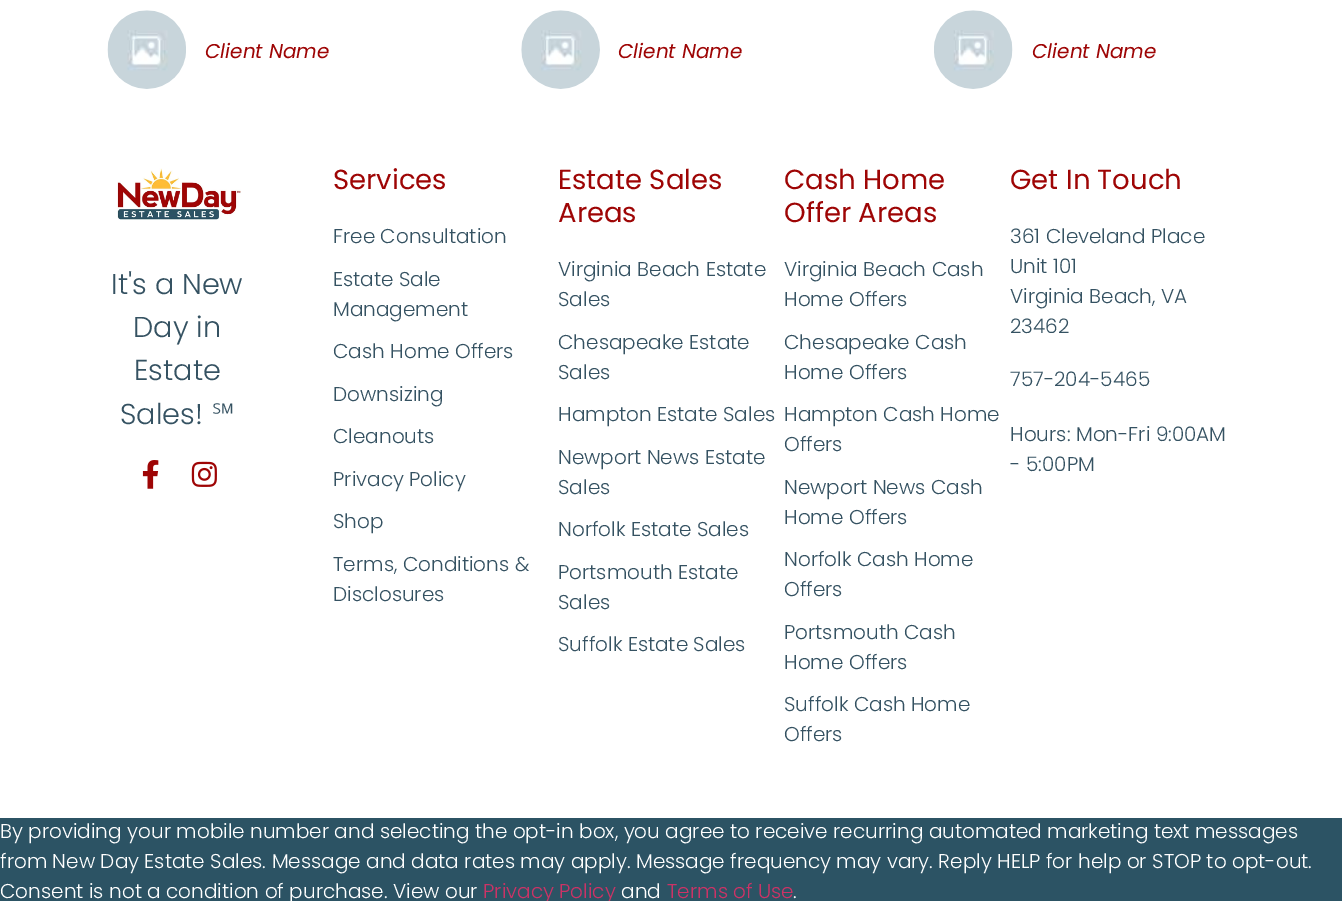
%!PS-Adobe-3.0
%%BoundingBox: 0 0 1342 901
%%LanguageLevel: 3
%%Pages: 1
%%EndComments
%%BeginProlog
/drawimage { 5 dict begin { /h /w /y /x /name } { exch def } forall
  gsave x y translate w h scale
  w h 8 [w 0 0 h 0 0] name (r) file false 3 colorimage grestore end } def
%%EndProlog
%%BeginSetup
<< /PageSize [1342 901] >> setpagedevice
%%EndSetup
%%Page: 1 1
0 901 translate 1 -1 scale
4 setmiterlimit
1 setgray
0 0 1342 901 rectfill
(images/1.raw) 107 10 79 79 drawimage
(images/2.raw) 521 10 79 79 drawimage
(images/3.raw) 934 10 79 79 drawimage
(images/4.raw) 117 168 124 52 drawimage
(images/5.raw) 142 460 17 29 drawimage
(images/6.raw) 191 461 26 26 drawimage
0.173 0.325 0.392 setrgbcolor
0 818 1342 83 rectfill
/Poppins-Italic [20 0 0 -20 0 0] selectfont
0.62 0.02 0.02 setrgbcolor
205 58 moveto (Client Name) show
618 58 moveto (Client Name) show
1032 58 moveto (Client Name) show
/Poppins-Light [28.75 0 0 -28.75 0 0] selectfont
0.208 0.322 0.384 setrgbcolor
111 294 moveto (It's a New) show
133 337 moveto (Day in) show
134 380 moveto (Estate) show
120 424 moveto (Sales!) show
/NotoSans-Light [28.75 0 0 -28.75 0 0] selectfont
212 424 moveto (℠) show
/Poppins-Regular [27.5 0 0 -27.5 0 0] selectfont
0.62 0.02 0.02 setrgbcolor
333 189 moveto (Services) show
/Poppins-Light [20 0 0 -20 0 0] selectfont
0.208 0.322 0.384 setrgbcolor
333 243 moveto (Free Consultation) show
333 286 moveto (Estate Sale) show
333 316 moveto (Management) show
333 358 moveto (Cash Home Offers) show
333 401 moveto (Downsizing) show
333 443 moveto (Cleanouts) show
333 486 moveto (Privacy Policy) show
333 528 moveto (Shop) show
333 571 moveto (Terms, Conditions &) show
333 601 moveto (Disclosures) show
/Poppins-Regular [27.5 0 0 -27.5 0 0] selectfont
0.62 0.02 0.02 setrgbcolor
558 189 moveto (Estate Sales) show
558 222 moveto (Areas) show
/Poppins-Light [20 0 0 -20 0 0] selectfont
0.208 0.322 0.384 setrgbcolor
558 276 moveto (Virginia Beach Estate) show
558 306 moveto (Sales) show
558 349 moveto (Chesapeake Estate) show
558 379 moveto (Sales) show
558 421 moveto (Hampton Estate Sales) show
558 464 moveto (Newport News Estate) show
558 494 moveto (Sales) show
558 536 moveto (Norfolk Estate Sales) show
558 579 moveto (Portsmouth Estate) show
558 609 moveto (Sales) show
558 651 moveto (Suffolk Estate Sales) show
/Poppins-Regular [27.5 0 0 -27.5 0 0] selectfont
0.62 0.02 0.02 setrgbcolor
784 189 moveto (Cash Home) show
784 222 moveto (Offer Areas) show
/Poppins-Light [20 0 0 -20 0 0] selectfont
0.208 0.322 0.384 setrgbcolor
784 276 moveto (Virginia Beach Cash) show
784 306 moveto (Home Offers) show
784 349 moveto (Chesapeake Cash) show
784 379 moveto (Home Offers) show
784 421 moveto (Hampton Cash Home) show
784 451 moveto (Offers) show
784 494 moveto (Newport News Cash) show
784 524 moveto (Home Offers) show
784 566 moveto (Norfolk Cash Home) show
784 596 moveto (Offers) show
784 639 moveto (Portsmouth Cash) show
784 669 moveto (Home Offers) show
784 711 moveto (Suffolk Cash Home) show
784 741 moveto (Offers) show
/Poppins-Regular [27.5 0 0 -27.5 0 0] selectfont
0.62 0.02 0.02 setrgbcolor
1010 189 moveto (Get In Touch) show
/Poppins-Light [20 0 0 -20 0 0] selectfont
0.208 0.322 0.384 setrgbcolor
1010 243 moveto (361 Cleveland Place) show
1010 273 moveto (Unit 101) show
1010 303 moveto (Virginia Beach, VA) show
1010 333 moveto (23462) show
1010 386 moveto (757-204-5465) show
1010 441 moveto (Hours: Mon-Fri 9:00AM) show
1010 471 moveto (- 5:00PM) show
1 setgray
0 838 moveto (By providing your mobile number and selecting the opt-in box, you agree to receive recurring automated marketing text messages) show
0 868 moveto (from New Day Estate Sales. Message and data rates may apply. Message frequency may vary. Reply HELP for help or STOP to opt-out.) show
0 898 moveto (Consent is not a condition of purchase. View our) show
0.8 0.2 0.4 setrgbcolor
483 898 moveto (Privacy Policy) show
1 setgray
621 898 moveto (and) show
0.8 0.2 0.4 setrgbcolor
667 898 moveto (Terms of Use) show
1 setgray
793 898 moveto (.) show
showpage
%%EOF
